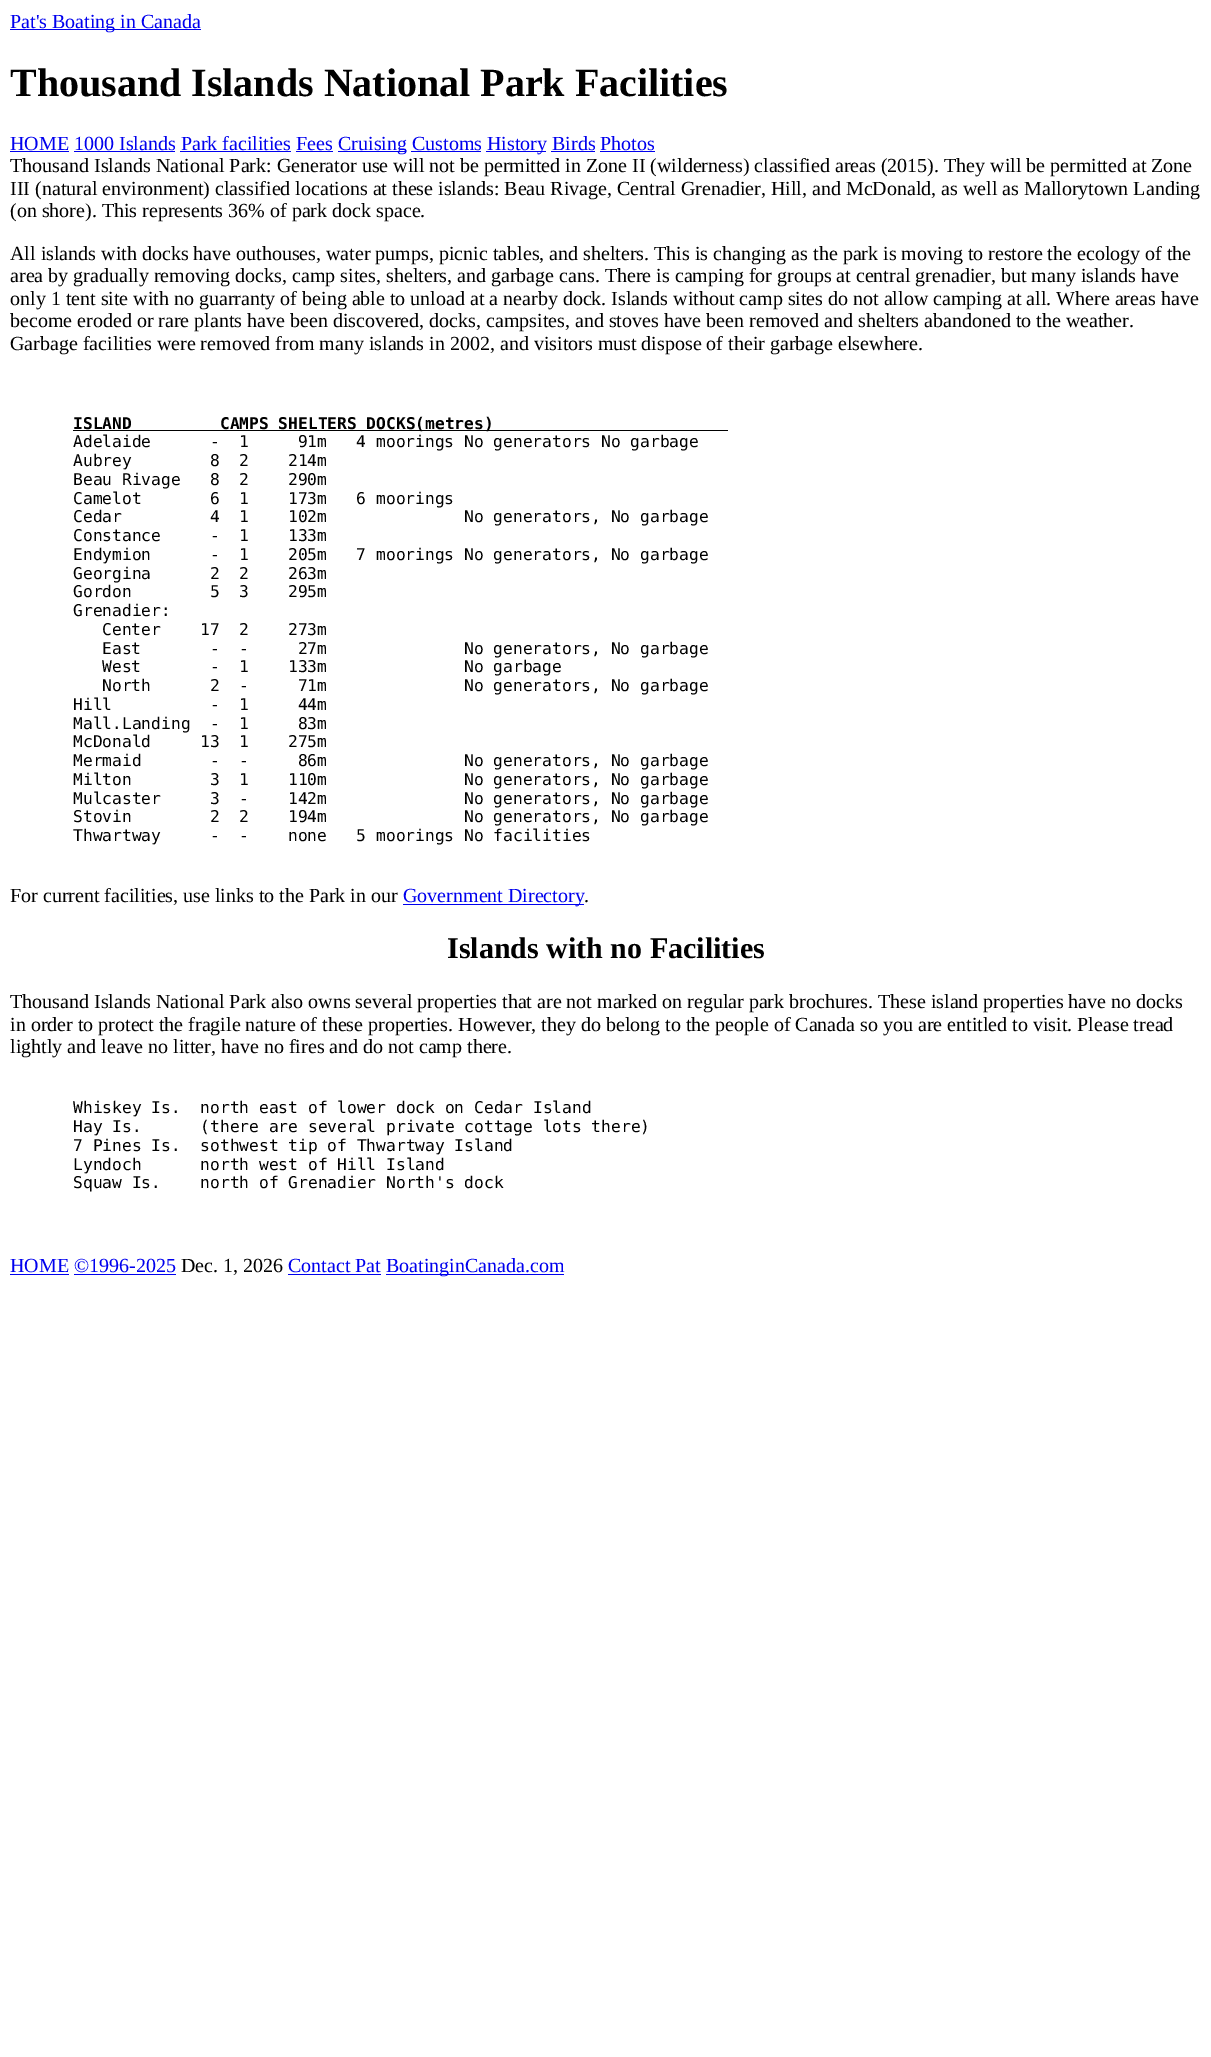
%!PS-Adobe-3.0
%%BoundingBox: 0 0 1211 2057
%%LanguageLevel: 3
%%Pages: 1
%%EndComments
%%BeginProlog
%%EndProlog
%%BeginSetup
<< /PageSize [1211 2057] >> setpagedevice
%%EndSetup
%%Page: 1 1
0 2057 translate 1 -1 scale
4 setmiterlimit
1 setgray
0 0 1211 2057 rectfill
0 0 0.933 setrgbcolor
10 29 191 1 rectfill
10 151 59 1 rectfill
338 151 68 1 rectfill
486 151 60 1 rectfill
74 151 101 1 rectfill
180 151 111 1 rectfill
296 151 37 1 rectfill
411 151 70 1 rectfill
551 151 44 1 rectfill
600 151 55 1 rectfill
0 setgray
73 430 655 1 rectfill
0 0 0.933 setrgbcolor
403 904 181 1 rectfill
10 1274 59 1 rectfill
288 1274 93 1 rectfill
386 1274 178 1 rectfill
74 1274 102 1 rectfill
/LiberationSerif-Regular [20 0 0 -20 0 0] selectfont
10 28 moveto (Pat's Boating in Canada) show
/LiberationSerif-Bold [40 0 0 -40 0 0] selectfont
0 setgray
10 96 moveto (Thousand Islands National Park Facilities) show
/LiberationSerif-Regular [20 0 0 -20 0 0] selectfont
0 0 0.933 setrgbcolor
10 150 moveto (HOME 1000 Islands Park facilities Fees) show
338 150 moveto (Cruising Customs) show
487 150 moveto (History Birds Photos) show
0 setgray
10 172 moveto (Thousand Islands National Park: Generator use will not be permitted in Zone II \(wilderness\) classified areas \(2015\). They will be permitted at Zone) show
10 195 moveto (III \(natural environment\) classified locations at these islands: Beau Rivage, Central Grenadier, Hill, and McDonald, as well as Mallorytown Landing) show
10 217 moveto (\(on shore\). This represents 36% of park dock space.) show
10 260 moveto (All islands with docks have outhouses, water pumps, picnic tables, and shelters. This is changing as the park is moving to restore the ecology of the) show
10 282 moveto (area by gradually removing docks, camp sites, shelters, and garbage cans. There is camping for groups at central grenadier, but many islands have) show
10 305 moveto (only 1 tent site with no guarranty of being able to unload at a nearby dock. Islands without camp sites do not allow camping at all. Where areas have) show
10 327 moveto (become eroded or rare plants have been discovered, docks, campsites, and stoves have been removed and shelters abandoned to the weather.) show
10 350 moveto (Garbage facilities were removed from many islands in 2002, and visitors must dispose of their garbage elsewhere.) show
/DejaVuSansMono-Bold [16.25 0 0 -16.25 0 0] selectfont
73 429 moveto (ISLAND         CAMPS SHELTERS DOCKS\(metres\)) show
/DejaVuSansMono-Regular [16.25 0 0 -16.25 0 0] selectfont
73 447 moveto (Adelaide      -) show
239 447 moveto (1     91m   4 moorings No generators No garbage) show
73 466 moveto (Aubrey        8) show
239 466 moveto (2    214m) show
73 485 moveto (Beau Rivage   8) show
239 485 moveto (2    290m) show
73 504 moveto (Camelot       6) show
239 504 moveto (1    173m   6 moorings) show
73 522 moveto (Cedar         4) show
239 522 moveto (1    102m              No generators, No garbage) show
73 541 moveto (Constance     -) show
239 541 moveto (1    133m) show
73 560 moveto (Endymion      -) show
239 560 moveto (1    205m   7 moorings No generators, No garbage) show
73 579 moveto (Georgina      2) show
239 579 moveto (2    263m) show
73 597 moveto (Gordon        5) show
239 597 moveto (3    295m) show
73 616 moveto (Grenadier:) show
102 635 moveto (Center    17) show
239 635 moveto (2    273m) show
102 654 moveto (East       -  -     27m              No generators, No garbage) show
102 672 moveto (West       -) show
239 672 moveto (1    133m              No garbage) show
102 691 moveto (North      2) show
239 691 moveto (-     71m              No generators, No garbage) show
73 710 moveto (Hill          -) show
239 710 moveto (1     44m) show
73 729 moveto (Mall.Landing  -) show
239 729 moveto (1     83m) show
73 747 moveto (McDonald     13) show
239 747 moveto (1    275m) show
73 766 moveto (Mermaid       -) show
239 766 moveto (-     86m              No generators, No garbage) show
73 785 moveto (Milton        3) show
239 785 moveto (1    110m              No generators, No garbage) show
73 804 moveto (Mulcaster     3) show
239 804 moveto (-    142m              No generators, No garbage) show
73 822 moveto (Stovin        2) show
239 822 moveto (2    194m              No generators, No garbage) show
73 841 moveto (Thwartway     -) show
239 841 moveto (-    none   5 moorings No facilities) show
/LiberationSerif-Regular [20 0 0 -20 0 0] selectfont
10 902 moveto (For current facilities, use links to the Park in our) show
0 0 0.933 setrgbcolor
403 902 moveto (Government Directory) show
0 setgray
584 902 moveto (.) show
/LiberationSerif-Bold [30 0 0 -30 0 0] selectfont
447 958 moveto (Islands with no Facilities) show
/LiberationSerif-Regular [20 0 0 -20 0 0] selectfont
10 1008 moveto (Thousand Islands National Park also owns several properties that are not marked on regular park brochures. These island properties have no docks) show
10 1031 moveto (in order to protect the fragile nature of these properties. However, they do belong to the people of Canada so you are entitled to visit. Please tread) show
10 1053 moveto (lightly and leave no litter, have no fires and do not camp there.) show
/DejaVuSansMono-Regular [16.25 0 0 -16.25 0 0] selectfont
73 1113 moveto (Whiskey Is.  north east of lower dock on Cedar Island) show
73 1132 moveto (Hay Is.      \(there are several private cottage lots there\)) show
73 1151 moveto (7 Pines Is.  sothwest tip of Thwartway Island) show
73 1170 moveto (Lyndoch      north west of Hill Island) show
73 1188 moveto (Squaw Is.    north of Grenadier North's dock) show
/LiberationSerif-Regular [20 0 0 -20 0 0] selectfont
0 0 0.933 setrgbcolor
10 1272 moveto (HOME ©1996-2025) show
0 setgray
181 1272 moveto (Dec. 1, 2026) show
0 0 0.933 setrgbcolor
288 1272 moveto (Contact Pat) show
386 1272 moveto (BoatinginCanada.com) show
showpage
%%EOF
